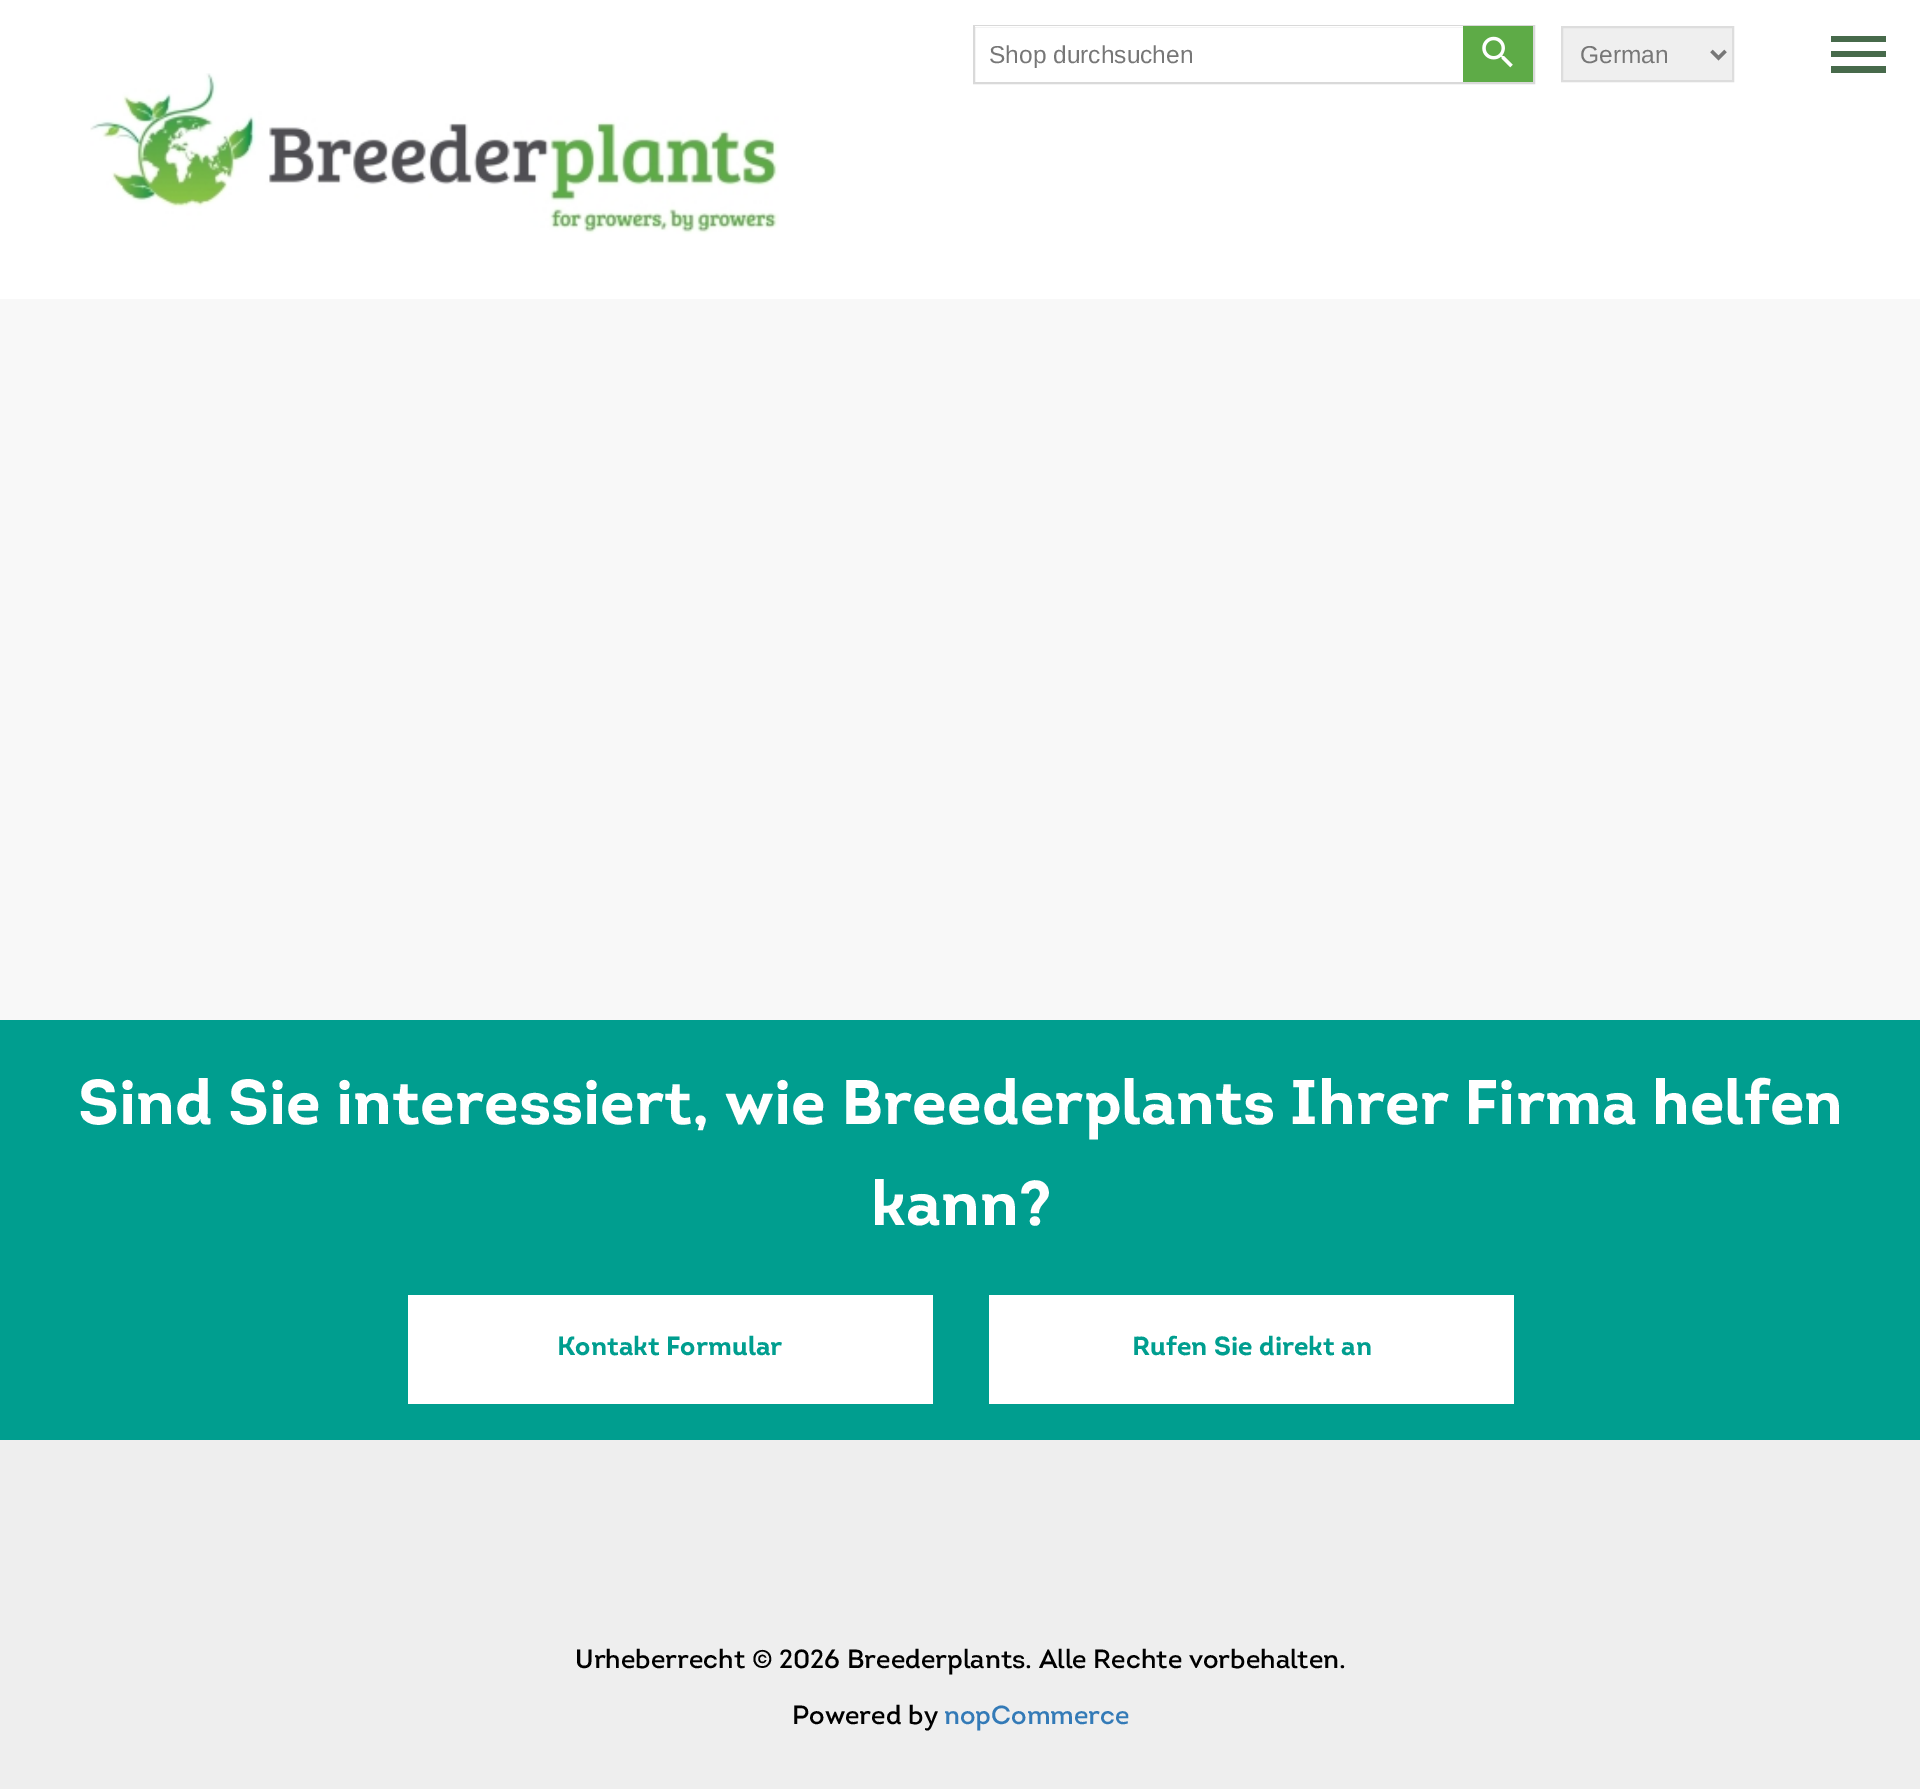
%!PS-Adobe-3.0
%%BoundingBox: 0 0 1920 1789
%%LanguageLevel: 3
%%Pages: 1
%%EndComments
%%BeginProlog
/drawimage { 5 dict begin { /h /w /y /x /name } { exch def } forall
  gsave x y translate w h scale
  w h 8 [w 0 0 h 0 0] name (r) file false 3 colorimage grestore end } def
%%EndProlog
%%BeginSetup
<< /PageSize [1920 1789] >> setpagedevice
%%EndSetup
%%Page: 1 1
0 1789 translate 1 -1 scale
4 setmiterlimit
0.973 setgray
0 0 1920 1789 rectfill
1 setgray
0 0 1920 299 rectfill
0.851 setgray
2 setlinewidth
974 26 560 57 rectstroke
1 setgray
975 26 488 1 rectfill
0.369 0.671 0.278 setrgbcolor
1463 26 70 56 rectfill
(images/1.raw) 1482 36 31 32 drawimage
0.937 setgray
newpath 1562 27 moveto 1733 27 lineto 1733 81 lineto 1562 81 lineto closepath gsave fill grestore
0.867 setgray
stroke
0.467 setgray
3.5 setlinewidth
newpath 1711.5 51 moveto 1718.5 58 lineto 1725.5 51 lineto stroke
0.278 0.416 0.294 setrgbcolor
newpath 1831 36 moveto 1886 36 lineto 1886 42 lineto 1831 42 lineto closepath 1831 57 moveto 1831 51 lineto 1886 51 lineto 1886 57 lineto closepath 1831 73 moveto 1831 66 lineto 1886 66 lineto 1886 73 lineto closepath fill
(images/2.raw) 90 73 689 161 drawimage
0.933 setgray
0 1440 1920 349 rectfill
0 0.62 0.561 setrgbcolor
0 1020 1920 420 rectfill
1 setgray
408 1295 525 109 rectfill
989 1295 525 109 rectfill
/LiberationSans-Regular [24.5 0 0 -24.5 0 0] selectfont
0.467 setgray
989 63 moveto (Shop durchsuchen) show
1580 63 moveto (German) show
/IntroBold-Bold [63 0 0 -63 0 0] selectfont
1 setgray
78 1124 moveto (Sind Sie interessiert, wie Breederplants Ihrer Firma helfen) show
871 1225 moveto (kann?) show
/IntroBold-Bold [26.25 0 0 -26.25 0 0] selectfont
0 0.62 0.561 setrgbcolor
557 1355 moveto (Kontakt Formular) show
1132 1355 moveto (Rufen Sie direkt an) show
/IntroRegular-Regular [26.25 0 0 -26.25 0 0] selectfont
0 setgray
575 1668 moveto (Urheberrecht © 2026 Breederplants. Alle Rechte vorbehalten.) show
792 1724 moveto (Powered by) show
0.2 0.478 0.718 setrgbcolor
944 1724 moveto (nopCommerce) show
showpage
%%EOF
